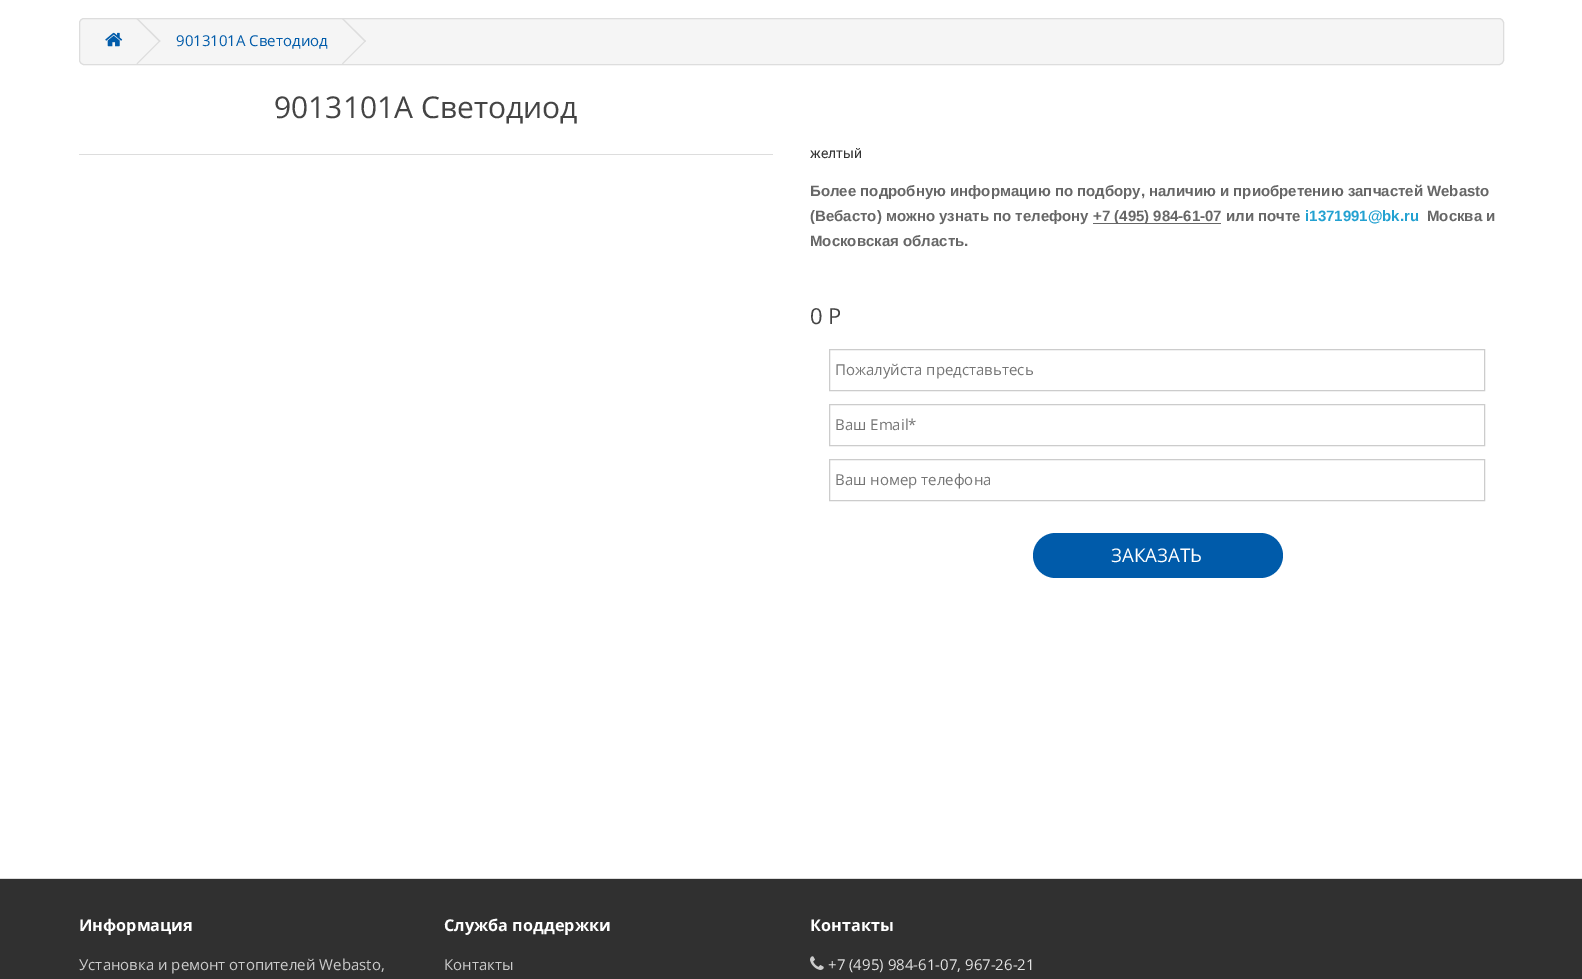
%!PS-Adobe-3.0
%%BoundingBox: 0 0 1582 979
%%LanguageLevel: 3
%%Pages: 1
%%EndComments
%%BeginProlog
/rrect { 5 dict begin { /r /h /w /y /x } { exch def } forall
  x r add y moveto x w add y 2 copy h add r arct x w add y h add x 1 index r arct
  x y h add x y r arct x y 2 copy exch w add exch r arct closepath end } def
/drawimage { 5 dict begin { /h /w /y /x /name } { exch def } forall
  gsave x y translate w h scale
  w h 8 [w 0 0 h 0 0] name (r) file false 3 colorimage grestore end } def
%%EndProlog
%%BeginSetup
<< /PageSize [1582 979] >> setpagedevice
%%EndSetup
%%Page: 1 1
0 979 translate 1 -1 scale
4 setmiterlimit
1 setgray
0 0 1582 979 rectfill
0.961 setgray
79.5 18.5 1424 46 4.5 rrect gsave fill grestore
0.867 setgray
stroke
(images/1.raw) 105 32 18 15 drawimage
newpath 136.5 19 moveto 137.5 18.5 lineto 160.5 41 lineto 159.5 42 lineto closepath fill
newpath 136.5 63.5 moveto 159.5 40.5 lineto 160.5 41 lineto 137.5 64 lineto closepath fill
newpath 342 19 moveto 343 18.5 lineto 366 41 lineto 365 42 lineto closepath fill
newpath 342 63.5 moveto 365 40.5 lineto 366 41 lineto 343 64 lineto closepath fill
79 154 694 1 rectfill
0.4 setgray
1093 223 128 1 rectfill
0.8 setgray
829.5 349.5 655 41 rectstroke
829.5 404.5 655 41 rectstroke
829.5 459.5 655 41 rectstroke
0 0.357 0.667 setrgbcolor
1033 533 250 45 22.5 rrect fill
0.188 setgray
0 879 1582 100 rectfill
0.867 setgray
0 878 1582 1 rectfill
(images/2.raw) 810 956 14 14 drawimage
/OpenSans-Regular [15 0 0 -15 0 0] selectfont
0 0.357 0.667 setrgbcolor
176 46 moveto (9013101A Светодиод) show
/OpenSans-Regular [30 0 0 -30 0 0] selectfont
0.267 setgray
274 118 moveto (9013101A Светодиод) show
/Roboto-Regular [14 0 0 -14 0 0] selectfont
0.2 setgray
810 158 moveto (желтый) show
/LiberationSans-Bold [15 0 0 -15 0 0] selectfont
0.4 setgray
810 196 moveto (Более подробную информацию по подбору, наличию и приобретению запчастей Webasto) show
810 221 moveto (\(Вебасто\) можно узнать по телефону) show
1093 221 moveto (+7 \(495\) 984-61-07 или почте) show
0.137 0.631 0.82 setrgbcolor
1305 221 moveto (i1371991@bk.ru) show
0.4 setgray
1427 221 moveto (Москва и) show
810 246 moveto (Московская область.) show
/OpenSans-Regular [22 0 0 -22 0 0] selectfont
0.267 setgray
810 324 moveto (0 Р) show
/OpenSans-Regular [15 0 0 -15 0 0] selectfont
0.459 setgray
835 375 moveto (Пожалуйста представьтесь) show
835 430 moveto (Ваш Email*) show
835 485 moveto (Ваш номер телефона) show
/OpenSans-Regular [18.75 0 0 -18.75 0 0] selectfont
1 setgray
1111 562 moveto (ЗАКАЗАТЬ) show
/OpenSans-Bold [16.25 0 0 -16.25 0 0] selectfont
79 931 moveto (Информация) show
/OpenSans-Regular [15 0 0 -15 0 0] selectfont
0.8 setgray
79 970 moveto (Установка и ремонт отопителей Webasto,) show
/OpenSans-Bold [16.25 0 0 -16.25 0 0] selectfont
1 setgray
444 931 moveto (Служба поддержки) show
/OpenSans-Regular [15 0 0 -15 0 0] selectfont
0.8 setgray
444 970 moveto (Контакты) show
/OpenSans-Bold [16.25 0 0 -16.25 0 0] selectfont
1 setgray
810 931 moveto (Контакты) show
/OpenSans-Regular [15 0 0 -15 0 0] selectfont
0.886 setgray
828 970 moveto (+7 \(495\) 984-61-07, 967-26-21) show
showpage
%%EOF
